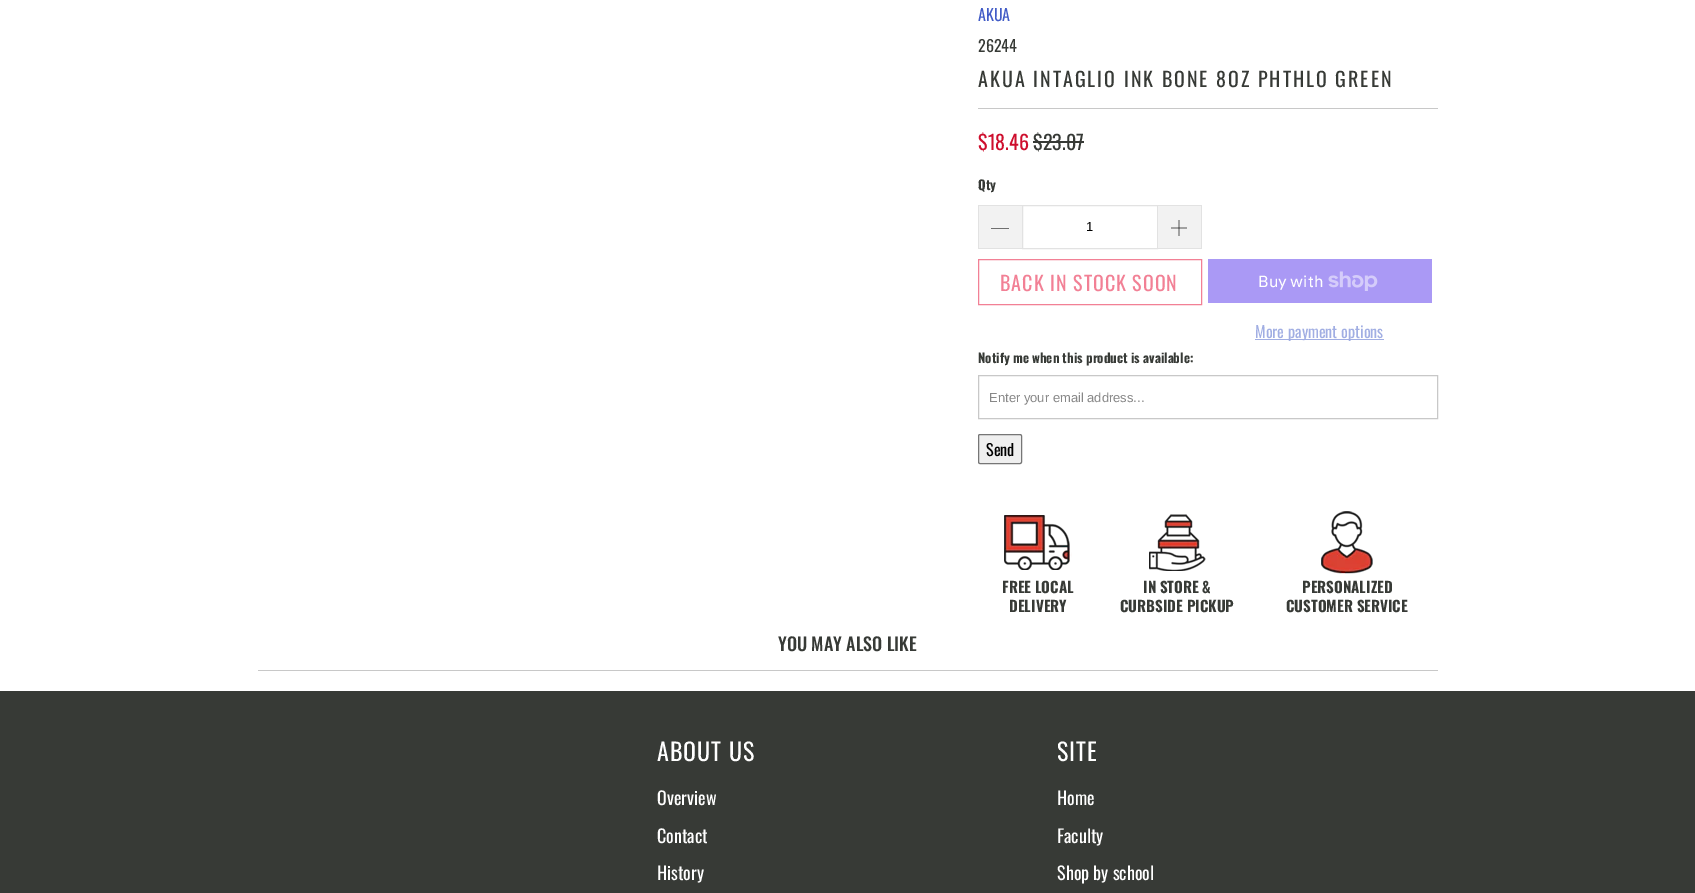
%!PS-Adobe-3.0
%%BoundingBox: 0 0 1695 893
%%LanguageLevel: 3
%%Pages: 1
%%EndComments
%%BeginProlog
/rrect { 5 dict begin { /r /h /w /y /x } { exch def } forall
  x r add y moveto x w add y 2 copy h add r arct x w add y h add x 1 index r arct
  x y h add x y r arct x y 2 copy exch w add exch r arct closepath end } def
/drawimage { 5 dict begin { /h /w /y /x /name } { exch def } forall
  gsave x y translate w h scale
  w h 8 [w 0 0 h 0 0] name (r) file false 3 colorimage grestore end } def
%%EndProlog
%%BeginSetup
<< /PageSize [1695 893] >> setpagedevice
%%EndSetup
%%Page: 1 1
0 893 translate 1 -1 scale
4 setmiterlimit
1 setgray
0 0 1695 893 rectfill
0.784 setgray
978 108 460 1 rectfill
0.216 0.227 0.212 setrgbcolor
1033 141 51 2 rectfill
0.949 setgray
979 206 43 42 rectfill
0.886 setgray
978 205 44 1 rectfill
978 248 44 1 rectfill
978 205 1 44 rectfill
0 setgray
newpath 991 228 moveto 1009 228 lineto 1009 228.5 lineto 991 228.5 lineto closepath fill
0.886 setgray
1022.5 205.5 135 43 rectstroke
0.949 setgray
1158 206 43 42 rectfill
0.886 setgray
1158 205 44 1 rectfill
1201 205 1 44 rectfill
1158 248 44 1 rectfill
(images/1.raw) 1171 220 16 16 drawimage
0.949 0.502 0.584 setrgbcolor
978.5 259.5 223 45 rectstroke
0.667 0.6 0.961 setrgbcolor
1208 259 224 44 rectfill
(images/2.raw) 1328 271 50 20 drawimage
0.631 0.682 0.89 setrgbcolor
1255 339 129 1 rectfill
0.784 setgray
978.5 375.5 459 43 rectstroke
0.937 setgray
978.5 434.5 43 29 1.5 rrect gsave fill grestore
0.463 setgray
stroke
(images/3.raw) 1004 515 68 55 drawimage
(images/4.raw) 1149 514 57 57 drawimage
(images/5.raw) 1321 511 52 63 drawimage
0.784 setgray
258 670 1180 1 rectfill
0.216 0.227 0.212 setrgbcolor
0 691 1695 202 rectfill
/Oswald-Regular [16 0 0 -16 0 0] selectfont
0.259 0.361 0.78 setrgbcolor
978 21 moveto (AKUA) show
0.216 0.227 0.212 setrgbcolor
978 52 moveto (26244) show
/Oswald-Regular [20 0 0 -20 0 0] selectfont
978 87 moveto 2 0 (AKUA INTAGLIO INK BONE 8OZ PHTHLO GREEN) ashow
0.808 0.055 0.176 setrgbcolor
978 150 moveto ($18.46) show
0.216 0.227 0.212 setrgbcolor
1033 150 moveto ($23.07) show
/Oswald-Bold [13 0 0 -13 0 0] selectfont
978 190 moveto (Qty) show
/LiberationSans-Regular [13 0 0 -13 0 0] selectfont
0 setgray
1086 231 moveto (1) show
/Oswald-Regular [20 0 0 -20 0 0] selectfont
0.949 0.502 0.584 setrgbcolor
1000 291 moveto 1 0 (BACK IN STOCK SOON) ashow
/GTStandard-Regular [16 0 0 -16 0 0] selectfont
1 setgray
1258 287 moveto (Buy with) show
/Oswald-Regular [16 0 0 -16 0 0] selectfont
0.631 0.682 0.89 setrgbcolor
1255 338 moveto (More payment options) show
/Oswald-Bold [13 0 0 -13 0 0] selectfont
0.216 0.227 0.212 setrgbcolor
978 363 moveto (Notify me when this product is available:) show
/LiberationSans-Regular [13 0 0 -13 0 0] selectfont
0.533 setgray
989 402 moveto (Enter your email address...) show
/Oswald-Regular [16 0 0 -16 0 0] selectfont
0 setgray
986 456 moveto (Send) show
/Oswald-Bold [15 0 0 -15 0 0] selectfont
0.216 0.227 0.212 setrgbcolor
1002 593 moveto (FREE LOCAL) show
1009 612 moveto (DELIVERY) show
1143 593 moveto (IN STORE &) show
1120 612 moveto (CURBSIDE PICKUP) show
1302 593 moveto (PERSONALIZED) show
1286 612 moveto (CUSTOMER SERVICE) show
/Oswald-Medium [18 0 0 -18 0 0] selectfont
778 651 moveto (YOU MAY ALSO LIKE) show
/Oswald-Regular [24 0 0 -24 0 0] selectfont
1 setgray
657 761 moveto 1 0 (ABOUT US) ashow
/Oswald-Regular [18 0 0 -18 0 0] selectfont
657 805 moveto (Overview) show
657 843 moveto (Contact) show
657 880 moveto (History) show
/Oswald-Regular [24 0 0 -24 0 0] selectfont
1057 761 moveto 1 0 (SITE) ashow
/Oswald-Regular [18 0 0 -18 0 0] selectfont
1057 805 moveto (Home) show
1057 843 moveto (Faculty) show
1057 880 moveto (Shop by school) show
showpage
%%EOF
